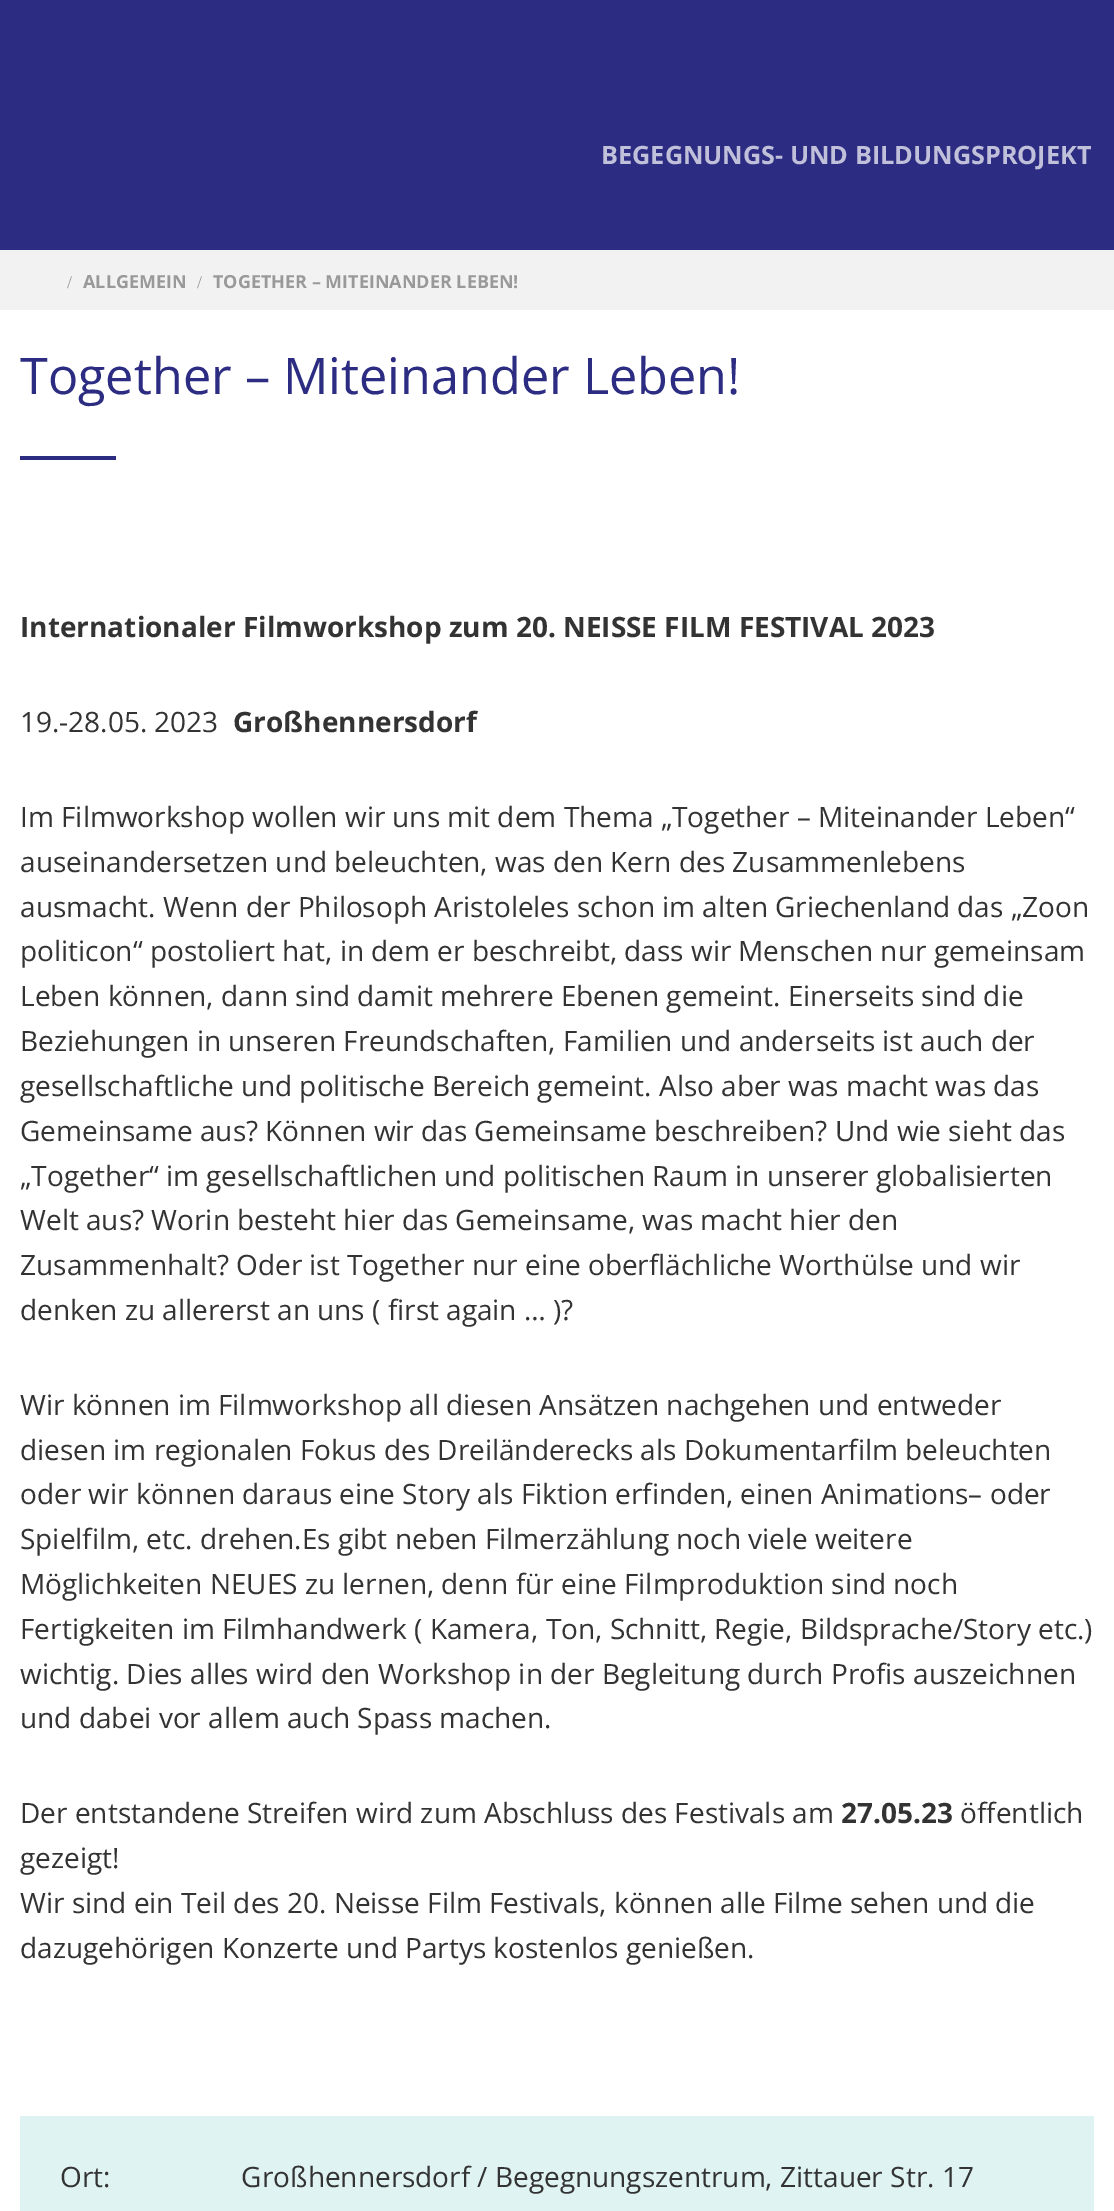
%!PS-Adobe-3.0
%%BoundingBox: 0 0 1114 2211
%%LanguageLevel: 3
%%Pages: 1
%%EndComments
%%BeginProlog
%%EndProlog
%%BeginSetup
<< /PageSize [1114 2211] >> setpagedevice
%%EndSetup
%%Page: 1 1
0 2211 translate 1 -1 scale
4 setmiterlimit
0.949 setgray
0 0 1114 2211 rectfill
0.173 0.176 0.51 setrgbcolor
0 0 1114 250 rectfill
1 setgray
0 310 1114 1901 rectfill
0.173 0.176 0.51 setrgbcolor
20 456 96 4 rectfill
0.878 0.953 0.953 setrgbcolor
20 2116 1074 95 rectfill
/OpenSans-Bold [25.25 0 0 -25.25 0 0] selectfont
0.753 0.753 0.855 setrgbcolor
601 164 moveto (BEGEGNUNGS- UND BILDUNGSPROJEKT) show
/LiberationSerif-Regular [18 0 0 -18 0 0] selectfont
0.6 setgray
67 288 moveto (/) show
/OpenSans-Bold [18 0 0 -18 0 0] selectfont
83 288 moveto (ALLGEMEIN) show
/LiberationSerif-Regular [18 0 0 -18 0 0] selectfont
197 288 moveto (/) show
/OpenSans-Bold [18 0 0 -18 0 0] selectfont
213 288 moveto (TOGETHER – MITEINANDER LEBEN!) show
/OpenSans-Regular [50.4 0 0 -50.4 0 0] selectfont
0.173 0.176 0.51 setrgbcolor
20 394 moveto (Together – Miteinander Leben!) show
/OpenSans-Bold [28 0 0 -28 0 0] selectfont
0.2 setgray
20 637 moveto (Internationaler Filmworkshop zum 20. NEISSE FILM FESTIVAL 2023) show
/OpenSans-Regular [28 0 0 -28 0 0] selectfont
20 732 moveto (19.-28.05. 2023) show
/OpenSans-Bold [28 0 0 -28 0 0] selectfont
233 732 moveto (Großhennersdorf) show
/OpenSans-Regular [28 0 0 -28 0 0] selectfont
20 827 moveto (Im Filmworkshop wollen wir uns mit dem Thema „Together – Miteinander Leben“) show
20 872 moveto (auseinandersetzen und beleuchten, was den Kern des Zusammenlebens) show
20 917 moveto (ausmacht. Wenn der Philosoph Aristoleles schon im alten Griechenland das „Zoon) show
20 961 moveto (politicon“ postoliert hat, in dem er beschreibt, dass wir Menschen nur gemeinsam) show
20 1006 moveto (Leben können, dann sind damit mehrere Ebenen gemeint. Einerseits sind die) show
20 1051 moveto (Beziehungen in unseren Freundschaften, Familien und anderseits ist auch der) show
20 1096 moveto (gesellschaftliche und politische Bereich gemeint. Also aber was macht was das) show
20 1141 moveto (Gemeinsame aus? Können wir das Gemeinsame beschreiben? Und wie sieht das) show
20 1186 moveto („Together“ im gesellschaftlichen und politischen Raum in unserer globalisierten) show
20 1230 moveto (Welt aus? Worin besteht hier das Gemeinsame, was macht hier den) show
20 1275 moveto (Zusammenhalt? Oder ist Together nur eine oberflächliche Worthülse und wir) show
20 1320 moveto (denken zu allererst an uns \( first again … \)?) show
20 1415 moveto (Wir können im Filmworkshop all diesen Ansätzen nachgehen und entweder) show
20 1460 moveto (diesen im regionalen Fokus des Dreiländerecks als Dokumentarfilm beleuchten) show
20 1504 moveto (oder wir können daraus eine Story als Fiktion erfinden, einen Animations– oder) show
20 1549 moveto (Spielfilm, etc. drehen.Es gibt neben Filmerzählung noch viele weitere) show
20 1594 moveto (Möglichkeiten NEUES zu lernen, denn für eine Filmproduktion sind noch) show
20 1639 moveto (Fertigkeiten im Filmhandwerk \( Kamera, Ton, Schnitt, Regie, Bildsprache/Story etc.\)) show
20 1684 moveto (wichtig. Dies alles wird den Workshop in der Begleitung durch Profis auszeichnen) show
20 1728 moveto (und dabei vor allem auch Spass machen.) show
20 1823 moveto (Der entstandene Streifen wird zum Abschluss des Festivals am) show
/OpenSans-Bold [28 0 0 -28 0 0] selectfont
841 1823 moveto (27.05.23) show
/OpenSans-Regular [28 0 0 -28 0 0] selectfont
960 1823 moveto (öffentlich) show
20 1868 moveto (gezeigt!) show
20 1913 moveto (Wir sind ein Teil des 20. Neisse Film Festivals, können alle Filme sehen und die) show
20 1958 moveto (dazugehörigen Konzerte und Partys kostenlos genießen.) show
60 2187 moveto (Ort:                  Großhennersdorf / Begegnungszentrum, Zittauer Str. 17) show
showpage
%%EOF
